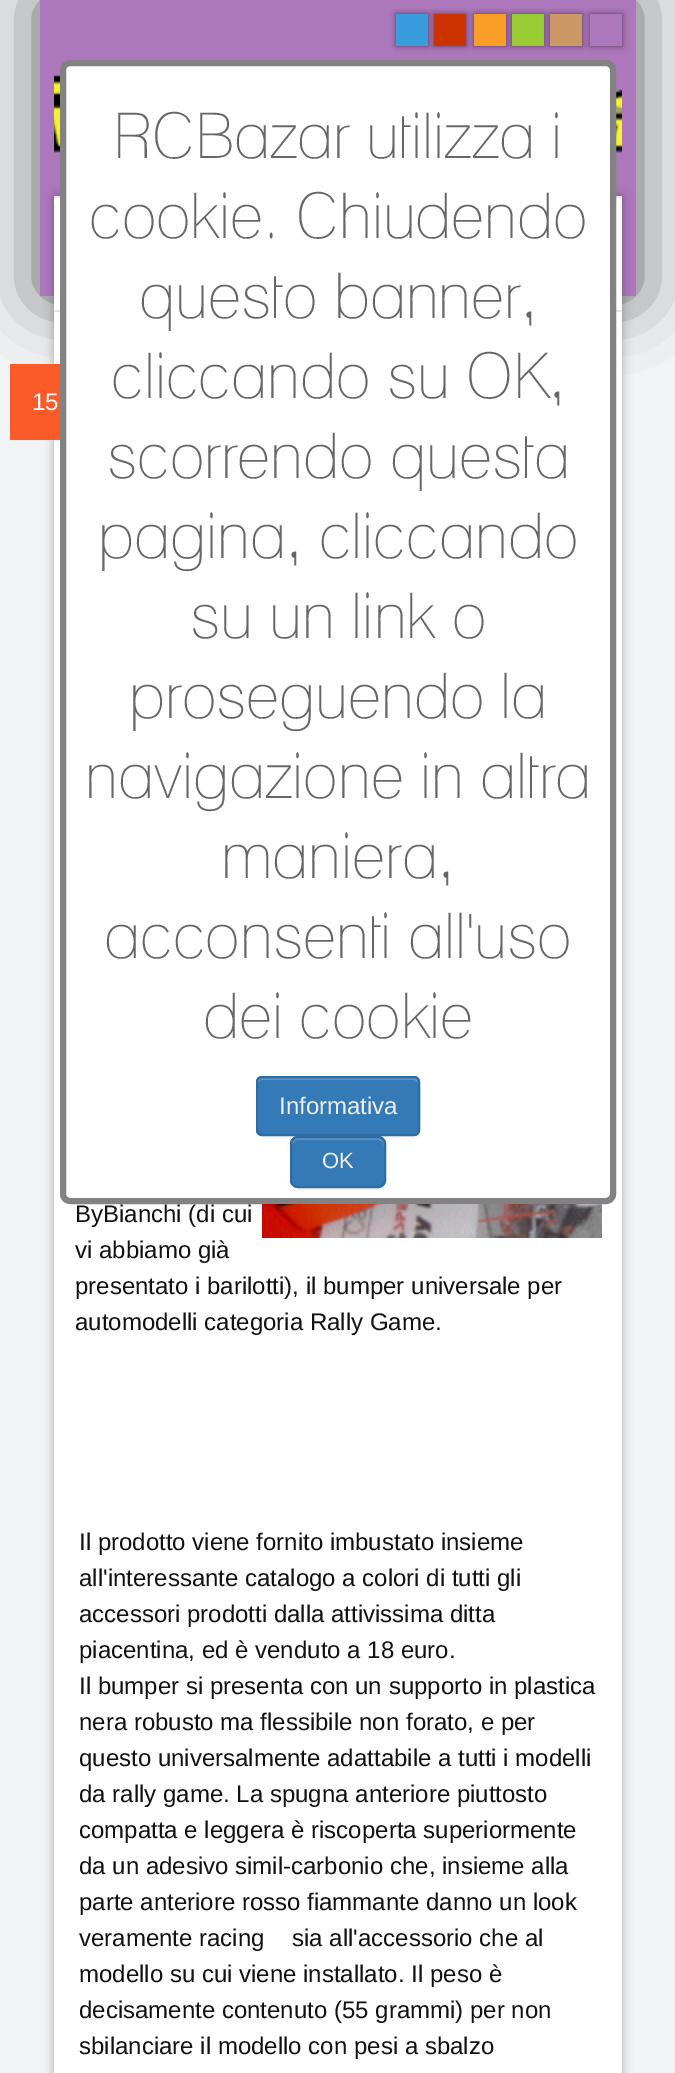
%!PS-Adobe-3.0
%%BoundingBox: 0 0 675 2073
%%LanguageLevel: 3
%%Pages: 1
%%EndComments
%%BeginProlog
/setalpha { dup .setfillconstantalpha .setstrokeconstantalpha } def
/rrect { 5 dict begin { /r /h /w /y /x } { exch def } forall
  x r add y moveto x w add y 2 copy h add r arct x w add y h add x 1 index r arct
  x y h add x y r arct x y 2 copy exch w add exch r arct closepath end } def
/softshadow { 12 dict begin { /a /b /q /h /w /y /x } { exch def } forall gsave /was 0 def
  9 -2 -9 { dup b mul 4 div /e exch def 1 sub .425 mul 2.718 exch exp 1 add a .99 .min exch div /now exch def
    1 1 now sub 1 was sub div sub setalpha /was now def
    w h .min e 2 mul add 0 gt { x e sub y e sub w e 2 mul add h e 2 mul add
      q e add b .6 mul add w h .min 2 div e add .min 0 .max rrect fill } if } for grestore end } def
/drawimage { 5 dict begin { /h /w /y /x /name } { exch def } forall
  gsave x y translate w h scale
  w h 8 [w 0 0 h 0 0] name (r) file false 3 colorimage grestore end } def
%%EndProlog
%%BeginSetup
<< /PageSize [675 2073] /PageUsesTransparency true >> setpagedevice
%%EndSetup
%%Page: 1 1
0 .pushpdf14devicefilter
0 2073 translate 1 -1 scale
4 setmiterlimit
0.949 0.953 0.957 setrgbcolor
0 0 675 2073 rectfill
0 setgray
40 0 596 296 0 35 0.6 softshadow
0.678 0.467 0.733 setrgbcolor
40 0 596 296 rectfill
0 setgray
396 14 32 32 0 3 0.5 softshadow
0.224 0.612 0.867 setrgbcolor
396 14 32 32 rectfill
0 setgray
434 14 32 32 0 3 0.5 softshadow
0.8 0.2 0 setrgbcolor
434 14 32 32 rectfill
0 setgray
474 14 32 32 0 3 0.5 softshadow
0.976 0.616 0.149 setrgbcolor
474 14 32 32 rectfill
0 setgray
512 14 32 32 0 3 0.5 softshadow
0.6 0.8 0.2 setrgbcolor
512 14 32 32 rectfill
0 setgray
550 14 32 32 0 3 0.5 softshadow
0.8 0.6 0.4 setrgbcolor
550 14 32 32 rectfill
gsave
newpath 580 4 moveto 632 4 lineto 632 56 lineto 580 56 lineto closepath 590 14 moveto 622 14 lineto 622 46 lineto 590 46 lineto closepath eoclip newpath
0 setgray
590 14 32 32 0 3 0.5 softshadow
grestore
(images/1.raw) 54 75 568 79 drawimage
0 setgray
54 196 568 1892 0 5 0.3 softshadow
1 setgray
54 198 568 1875 rectfill
0.906 setgray
54 196 568 2 rectfill
54 310 568 2 rectfill
1 setgray
63 63 550 1138 7 rrect gsave fill grestore
0.51 setgray
6 setlinewidth
stroke
0 setgray
256 1078 164 60 6 2 0.05 softshadow
0.2 0.478 0.718 setrgbcolor
256 1076 164 60 6 rrect fill
0.361 0.584 0.773 setrgbcolor
newpath 262 1080 moveto 414 1080 lineto 416 1080 418 1082 418 1084 curveto 418 1082 lineto 418 1080 416 1078 414 1078 curveto 262 1078 lineto 260 1078 258 1080 258 1082 curveto 258 1084 lineto 258 1082 260 1080 262 1080 curveto closepath fill
0.18 0.427 0.643 setrgbcolor
2 setlinewidth
257 1077 162 58 5 rrect stroke
0 setgray
290 1138 96 52 8 2 0.05 softshadow
0.2 0.478 0.718 setrgbcolor
290 1136 96 52 8 rrect fill
0.361 0.584 0.773 setrgbcolor
newpath 298 1140 moveto 378 1140 lineto 381 1140 384 1143 384 1146 curveto 384 1135 374 1138 365 1138 curveto 311 1138 lineto 302 1138 292 1135 292 1146 curveto 292 1143 295 1140 298 1140 curveto closepath fill
0.18 0.427 0.643 setrgbcolor
291 1137 94 50 7 rrect stroke
0.984 0.353 0.161 setrgbcolor
10 364 50 76 rectfill
(images/2.raw) 262 1204 340 34 drawimage
/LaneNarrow-Regular [63 0 0 -63 0 0] selectfont
0.4 setgray
113 158 moveto (RCBazar utilizza i) show
89 238 moveto (cookie. Chiudendo) show
139 318 moveto (questo banner,) show
111 398 moveto (cliccando su OK,) show
107 478 moveto (scorrendo questa) show
98 558 moveto (pagina, cliccando) show
190 638 moveto (su un link o) show
129 718 moveto (proseguendo la) show
85 798 moveto (navigazione in altra) show
221 878 moveto (maniera,) show
104 958 moveto (acconsenti all'uso) show
203 1038 moveto (dei cookie) show
/LiberationSans-Regular [24 0 0 -24 0 0] selectfont
0.933 setgray
279 1114 moveto (Informativa) show
/LiberationSans-Regular [22 0 0 -22 0 0] selectfont
322 1168 moveto (OK) show
/LiberationSans-Regular [24 0 0 -24 0 0] selectfont
1 setgray
32 410 moveto (15) show
0.067 setgray
75 1222 moveto (ByBianchi \(di cui) show
75 1258 moveto (vi abbiamo già) show
75 1294 moveto (presentato i barilotti\), il bumper universale per) show
75 1330 moveto (automodelli categoria Rally Game.) show
79 1550 moveto (Il prodotto viene fornito imbustato insieme) show
79 1586 moveto (all'interessante catalogo a colori di tutti gli) show
79 1622 moveto (accessori prodotti dalla attivissima ditta) show
79 1658 moveto (piacentina, ed è venduto a 18 euro.) show
79 1694 moveto (Il bumper si presenta con un supporto in plastica) show
79 1730 moveto (nera robusto ma flessibile non forato, e per) show
79 1766 moveto (questo universalmente adattabile a tutti i modelli) show
79 1802 moveto (da rally game. La spugna anteriore piuttosto) show
79 1838 moveto (compatta e leggera è riscoperta superiormente) show
79 1874 moveto (da un adesivo simil-carbonio che, insieme alla) show
79 1910 moveto (parte anteriore rosso fiammante danno un look) show
79 1946 moveto (veramente racing) show
292 1946 moveto (sia all'accessorio che al) show
79 1982 moveto (modello su cui viene installato. Il peso è) show
79 2018 moveto (decisamente contenuto \(55 grammi\) per non) show
79 2054 moveto (sbilanciare il modello con pesi a sbalzo) show
.poppdf14devicefilter showpage
%%EOF
